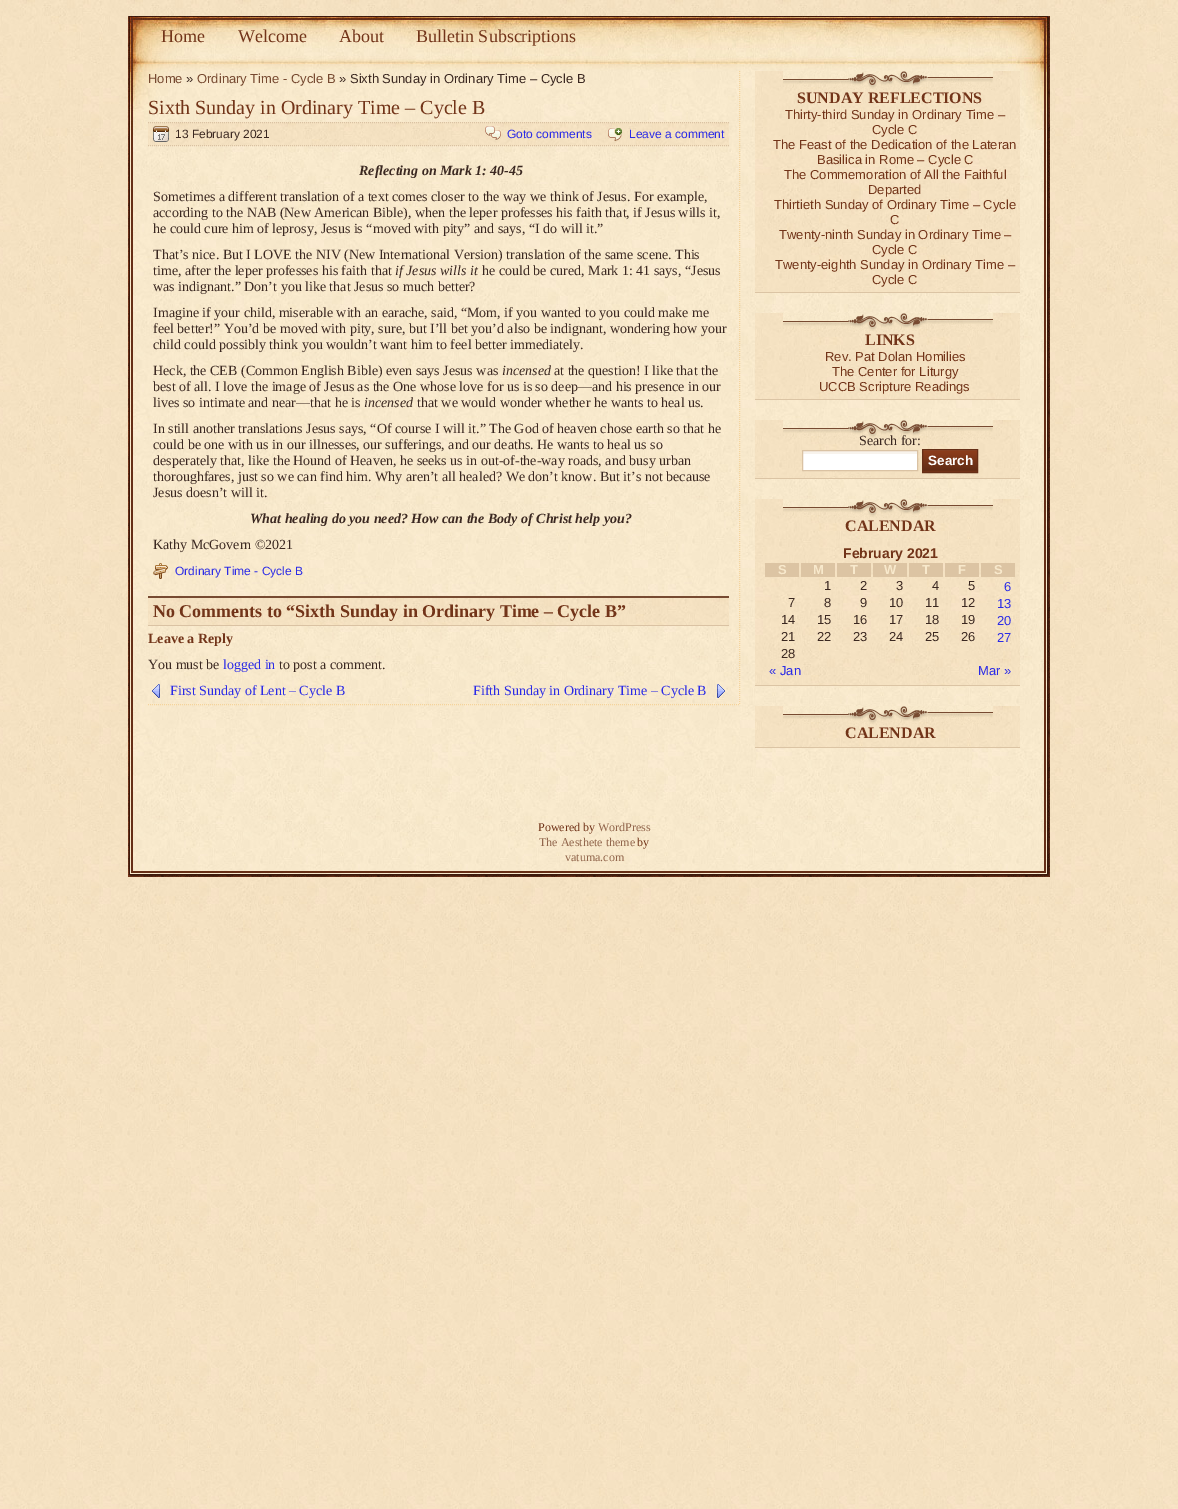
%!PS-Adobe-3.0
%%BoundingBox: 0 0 1178 1509
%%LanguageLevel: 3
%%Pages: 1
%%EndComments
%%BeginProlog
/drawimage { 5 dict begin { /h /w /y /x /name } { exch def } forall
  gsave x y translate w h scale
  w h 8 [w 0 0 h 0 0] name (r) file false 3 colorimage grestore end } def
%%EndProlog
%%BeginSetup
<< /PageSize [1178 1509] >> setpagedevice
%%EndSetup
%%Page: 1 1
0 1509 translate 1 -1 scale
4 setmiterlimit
1 setgray
0 0 1178 1509 rectfill
(images/1.raw) 0 160 1178 1349 drawimage
(images/2.raw) 0 0 1178 160 drawimage
(images/3.raw) 133 130 911 741 drawimage
(images/4.raw) 128 130 922 741 drawimage
(images/5.raw) 128 16 922 114 drawimage
(images/6.raw) 128 871 922 6 drawimage
0.961 0.827 0.604 setrgbcolor
[1 1] 0 setdash
newpath 739.5 71 moveto 739.5 705 lineto stroke
newpath 148 704.5 moveto 740 704.5 lineto stroke
(images/7.raw) 148 122 581 24 drawimage
0.855 0.761 0.639 setrgbcolor
newpath 148 122.5 moveto 729 122.5 lineto stroke
newpath 148 145.5 moveto 729 145.5 lineto stroke
(images/8.raw) 153 126 16 16 drawimage
(images/9.raw) 485 126 16 14 drawimage
(images/10.raw) 608 128 14 13 drawimage
(images/11.raw) 153 563 15 16 drawimage
(images/12.raw) 148 598 581 27 drawimage
0.467 0.29 0.192 setrgbcolor
148 596 581 2 rectfill
0.855 0.761 0.639 setrgbcolor
148 625 581 1 rectfill
(images/13.raw) 152 684 8 14 drawimage
(images/14.raw) 717 684 8 14 drawimage
(images/15.raw) 755 71 265 221 drawimage
0.859 0.769 0.643 setrgbcolor
755 292 265 1 rectfill
(images/16.raw) 783 71 210 19 drawimage
(images/17.raw) 755 313 265 86 drawimage
755 399 265 1 rectfill
(images/16.raw) 783 313 210 19 drawimage
(images/18.raw) 755 420 265 58 drawimage
755 478 265 1 rectfill
(images/16.raw) 783 420 210 19 drawimage
1 setgray
803 454 114 16 rectfill
0.973 0.953 0.925 setrgbcolor
802 451 116 3 rectfill
0.855 0.761 0.639 setrgbcolor
[] 0 setdash
802.5 450.5 115 20 rectstroke
(images/19.raw) 923 450 54 22 drawimage
0.4 0.18 0.086 setrgbcolor
922.5 449.5 55 23 rectstroke
(images/20.raw) 755 499 265 186 drawimage
0.859 0.769 0.643 setrgbcolor
755 685 265 1 rectfill
(images/16.raw) 783 499 210 19 drawimage
0.863 0.769 0.639 setrgbcolor
765 563 34 14 rectfill
801 563 34 14 rectfill
837 563 34 14 rectfill
873 563 34 14 rectfill
909 563 34 14 rectfill
945 563 34 14 rectfill
981 563 34 14 rectfill
(images/21.raw) 755 706 265 41 drawimage
0.859 0.769 0.643 setrgbcolor
755 747 265 1 rectfill
(images/16.raw) 783 706 210 19 drawimage
/LiberationSerif-Regular [18 0 0 -18 0 0] selectfont
0.447 0.204 0.098 setrgbcolor
161 42 moveto (Home) show
238 42 moveto (Welcome) show
339 42 moveto (About) show
416 42 moveto (Bulletin Subscriptions) show
/LiberationSans-Regular [13 0 0 -13 0 0] selectfont
0.467 0.29 0.192 setrgbcolor
148 83 moveto (Home) show
0.231 0.157 0.129 setrgbcolor
186 83 moveto (») show
0.467 0.29 0.192 setrgbcolor
197 83 moveto (Ordinary Time - Cycle B) show
0.231 0.157 0.129 setrgbcolor
339 83 moveto (» Sixth Sunday in Ordinary Time – Cycle B) show
/LiberationSerif-Regular [20 0 0 -20 0 0] selectfont
0.447 0.204 0.098 setrgbcolor
148 114 moveto (Sixth Sunday in Ordinary Time – Cycle B) show
/LiberationSans-Regular [12 0 0 -12 0 0] selectfont
0.231 0.157 0.129 setrgbcolor
175 138 moveto (13 February 2021) show
0.169 0.169 0.906 setrgbcolor
507 138 moveto (Goto comments) show
629 138 moveto (Leave a comment) show
/LiberationSerif-BoldItalic [14 0 0 -14 0 0] selectfont
0.231 0.157 0.129 setrgbcolor
359 175 moveto (Reflecting on Mark 1: 40-45) show
/LiberationSerif-Regular [14 0 0 -14 0 0] selectfont
153 201 moveto (Sometimes a different translation of a text comes closer to the way we think of Jesus. For example,) show
153 217 moveto (according to the NAB \(New American Bible\), when the leper professes his faith that, if Jesus wills it,) show
153 233 moveto (he could cure him of leprosy, Jesus is “moved with pity” and says, “I do will it.”) show
153 259 moveto (That’s nice. But I LOVE the NIV \(New International Version\) translation of the same scene. This) show
153 275 moveto (time, after the leper professes his faith that) show
/LiberationSerif-Italic [14 0 0 -14 0 0] selectfont
395 275 moveto (if Jesus wills it) show
/LiberationSerif-Regular [14 0 0 -14 0 0] selectfont
482 275 moveto (he could be cured, Mark 1: 41 says, “Jesus) show
153 291 moveto (was indignant.” Don’t you like that Jesus so much better?) show
153 317 moveto (Imagine if your child, miserable with an earache, said, “Mom, if you wanted to you could make me) show
153 333 moveto (feel better!” You’d be moved with pity, sure, but I’ll bet you’d also be indignant, wondering how your) show
153 349 moveto (child could possibly think you wouldn’t want him to feel better immediately.) show
153 375 moveto (Heck, the CEB \(Common English Bible\) even says Jesus was) show
/LiberationSerif-Italic [14 0 0 -14 0 0] selectfont
502 375 moveto (incensed) show
/LiberationSerif-Regular [14 0 0 -14 0 0] selectfont
554 375 moveto (at the question! I like that the) show
153 391 moveto (best of all. I love the image of Jesus as the One whose love for us is so deep—and his presence in our) show
153 407 moveto (lives so intimate and near—that he is) show
/LiberationSerif-Italic [14 0 0 -14 0 0] selectfont
364 407 moveto (incensed) show
/LiberationSerif-Regular [14 0 0 -14 0 0] selectfont
417 407 moveto (that we would wonder whether he wants to heal us.) show
153 433 moveto (In still another translations Jesus says, “Of course I will it.” The God of heaven chose earth so that he) show
153 449 moveto (could be one with us in our illnesses, our sufferings, and our deaths. He wants to heal us so) show
153 465 moveto (desperately that, like the Hound of Heaven, he seeks us in out-of-the-way roads, and busy urban) show
153 481 moveto (thoroughfares, just so we can find him. Why aren’t all healed? We don’t know. But it’s not because) show
153 497 moveto (Jesus doesn’t will it.) show
/LiberationSerif-BoldItalic [14 0 0 -14 0 0] selectfont
250 523 moveto (What healing do you need? How can the Body of Christ help you?) show
/LiberationSerif-Regular [14 0 0 -14 0 0] selectfont
153 549 moveto (Kathy McGovern ©2021) show
/LiberationSans-Regular [12 0 0 -12 0 0] selectfont
0.169 0.169 0.906 setrgbcolor
175 575 moveto (Ordinary Time - Cycle B) show
/LiberationSerif-Bold [18 0 0 -18 0 0] selectfont
0.447 0.204 0.098 setrgbcolor
153 617 moveto (No Comments to “Sixth Sunday in Ordinary Time – Cycle B”) show
/LiberationSerif-Bold [14 0 0 -14 0 0] selectfont
148 643 moveto (Leave a Reply) show
/LiberationSerif-Regular [14 0 0 -14 0 0] selectfont
0.231 0.157 0.129 setrgbcolor
148 669 moveto (You must be) show
0.169 0.169 0.906 setrgbcolor
223 669 moveto (logged in) show
0.231 0.157 0.129 setrgbcolor
279 669 moveto (to post a comment.) show
0.169 0.169 0.906 setrgbcolor
170 695 moveto (First Sunday of Lent – Cycle B) show
473 695 moveto (Fifth Sunday in Ordinary Time – Cycle B) show
/LiberationSerif-Bold [16 0 0 -16 0 0] selectfont
0.447 0.204 0.098 setrgbcolor
797 103 moveto (SUNDAY REFLECTIONS) show
/LiberationSans-Regular [13 0 0 -13 0 0] selectfont
785 119 moveto (Thirty-third Sunday in Ordinary Time –) show
872 134 moveto (Cycle C) show
773 149 moveto (The Feast of the Dedication of the Lateran) show
817 164 moveto (Basilica in Rome – Cycle C) show
784 179 moveto (The Commemoration of All the Faithful) show
868 194 moveto (Departed) show
774 209 moveto (Thirtieth Sunday of Ordinary Time – Cycle) show
890 224 moveto (C) show
779 239 moveto (Twenty-ninth Sunday in Ordinary Time –) show
872 254 moveto (Cycle C) show
775 269 moveto (Twenty-eighth Sunday in Ordinary Time –) show
872 284 moveto (Cycle C) show
/LiberationSerif-Bold [16 0 0 -16 0 0] selectfont
865 345 moveto (LINKS) show
/LiberationSans-Regular [13 0 0 -13 0 0] selectfont
825 361 moveto (Rev. Pat Dolan Homilies) show
832 376 moveto (The Center for Liturgy) show
819 391 moveto (UCCB Scripture Readings) show
/LiberationSerif-Regular [14 0 0 -14 0 0] selectfont
0.231 0.157 0.129 setrgbcolor
859 445 moveto (Search for:) show
/LiberationSans-Bold [13.5 0 0 -13.5 0 0] selectfont
1 setgray
928 465 moveto (Search) show
/LiberationSerif-Bold [16 0 0 -16 0 0] selectfont
0.447 0.204 0.098 setrgbcolor
845 531 moveto (CALENDAR) show
/LiberationSans-Bold [14 0 0 -14 0 0] selectfont
843 558 moveto (February 2021) show
/LiberationSans-Bold [13 0 0 -13 0 0] selectfont
0.973 0.914 0.8 setrgbcolor
778 574 moveto (S) show
813 574 moveto (M) show
850 574 moveto (T) show
884 574 moveto (W) show
922 574 moveto (T) show
958 574 moveto (F) show
994 574 moveto (S) show
/LiberationSans-Regular [13 0 0 -13 0 0] selectfont
0.231 0.157 0.129 setrgbcolor
824 590 moveto (1) show
860 590 moveto (2) show
896 590 moveto (3) show
932 590 moveto (4) show
968 590 moveto (5) show
0.169 0.169 0.906 setrgbcolor
1004 591 moveto (6) show
0.231 0.157 0.129 setrgbcolor
788 607 moveto (7) show
824 607 moveto (8) show
860 607 moveto (9) show
889 607 moveto (10) show
925 607 moveto (11) show
961 607 moveto (12) show
0.169 0.169 0.906 setrgbcolor
997 608 moveto (13) show
0.231 0.157 0.129 setrgbcolor
781 624 moveto (14) show
817 624 moveto (15) show
853 624 moveto (16) show
889 624 moveto (17) show
925 624 moveto (18) show
961 624 moveto (19) show
0.169 0.169 0.906 setrgbcolor
997 625 moveto (20) show
0.231 0.157 0.129 setrgbcolor
781 641 moveto (21) show
817 641 moveto (22) show
853 641 moveto (23) show
889 641 moveto (24) show
925 641 moveto (25) show
961 641 moveto (26) show
0.169 0.169 0.906 setrgbcolor
997 642 moveto (27) show
0.231 0.157 0.129 setrgbcolor
781 658 moveto (28) show
0.169 0.169 0.906 setrgbcolor
769 675 moveto (« Jan) show
978 675 moveto (Mar ») show
/LiberationSerif-Bold [16 0 0 -16 0 0] selectfont
0.447 0.204 0.098 setrgbcolor
845 738 moveto (CALENDAR) show
/LiberationSerif-Regular [12 0 0 -12 0 0] selectfont
538 831 moveto (Powered by) show
0.573 0.4 0.298 setrgbcolor
598 831 moveto (WordPress) show
539 846 moveto (The Aesthete theme) show
0.447 0.204 0.098 setrgbcolor
637 846 moveto (by) show
0.573 0.4 0.298 setrgbcolor
565 861 moveto (vatuma.com) show
showpage
%%EOF
